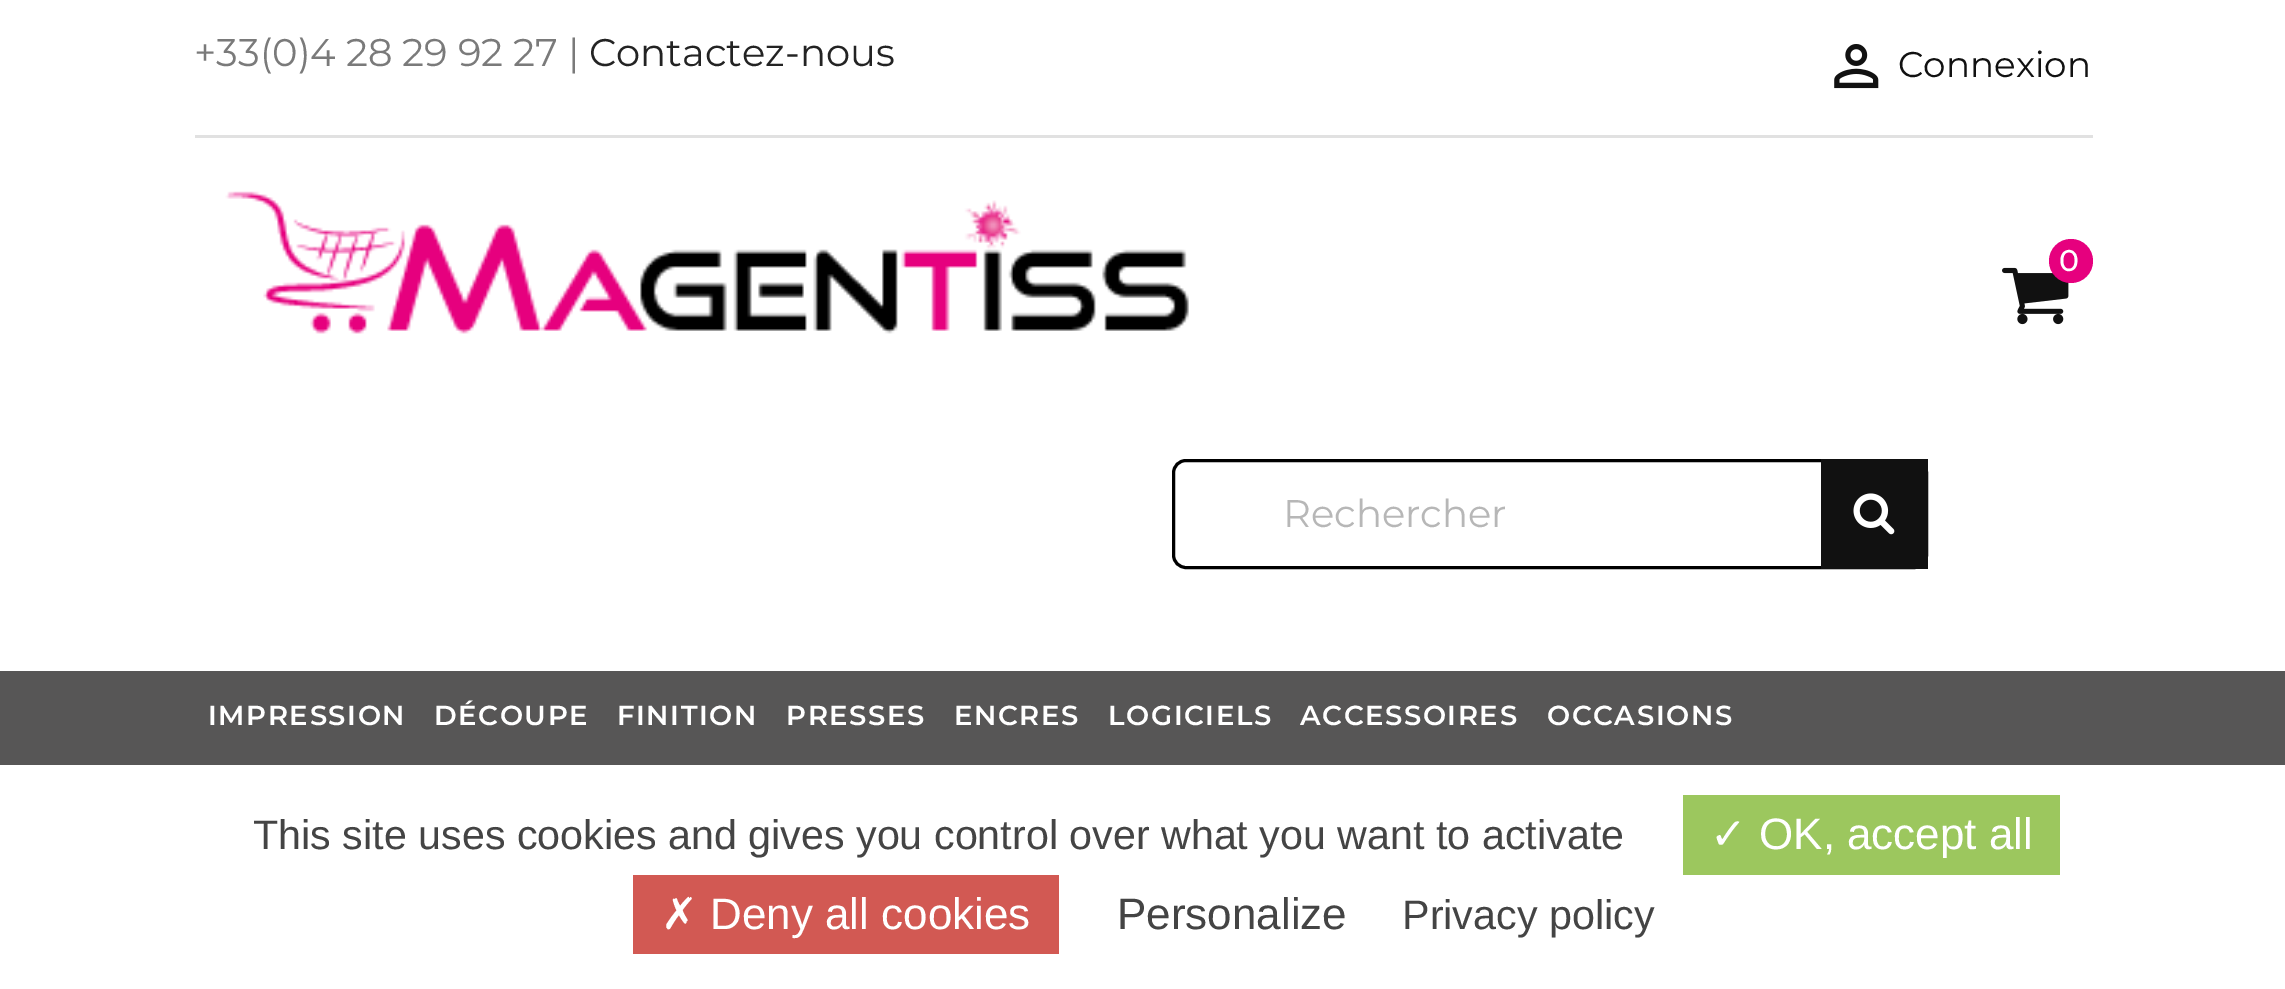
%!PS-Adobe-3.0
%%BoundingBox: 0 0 2285 989
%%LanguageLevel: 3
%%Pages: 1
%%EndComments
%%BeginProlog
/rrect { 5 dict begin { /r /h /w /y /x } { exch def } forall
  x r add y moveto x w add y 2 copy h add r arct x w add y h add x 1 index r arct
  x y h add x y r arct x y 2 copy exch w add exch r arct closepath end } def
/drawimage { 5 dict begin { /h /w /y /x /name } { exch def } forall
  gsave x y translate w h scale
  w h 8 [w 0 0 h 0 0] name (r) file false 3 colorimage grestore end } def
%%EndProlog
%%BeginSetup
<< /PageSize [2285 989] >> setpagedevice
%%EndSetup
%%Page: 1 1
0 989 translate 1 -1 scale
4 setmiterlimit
1 setgray
0 0 2285 989 rectfill
0.882 setgray
195 135 1898 3 rectfill
(images/1.raw) 1834 44 45 45 drawimage
(images/2.raw) 225 191 964 143 drawimage
(images/3.raw) 2002 267 67 58 drawimage
0.902 0 0.494 setrgbcolor
newpath 2071 261 22 0 360 arc closepath fill
0 setgray
3 setlinewidth
1173.5 460.5 753 107 12.5 rrect stroke
0.067 setgray
1821 459 107 110 rectfill
(images/4.raw) 1853 493 42 42 drawimage
0.341 0.337 0.337 setrgbcolor
0 671 2285 94 rectfill
0.612 0.78 0.369 setrgbcolor
1683 795 377 80 rectfill
0.824 0.349 0.325 setrgbcolor
633 875 426 79 rectfill
/Montserrat-Regular [38.5 0 0 -38.5 0 0] selectfont
0.478 setgray
194 66 moveto (+33\(0\)4 28 29 92 27 |) show
0.137 setgray
589 66 moveto (Contactez-nous) show
/Montserrat-Regular [35.75 0 0 -35.75 0 0] selectfont
0.067 setgray
1898 77 moveto (Connexion) show
/Montserrat-Medium [30 0 0 -30 0 0] selectfont
1 setgray
2059 271 moveto (0) show
/Montserrat-Regular [38.5 0 0 -38.5 0 0] selectfont
0.718 setgray
1283 527 moveto (Rechercher) show
/Montserrat-SemiBold [27.5 0 0 -27.5 0 0] selectfont
1 setgray
208 725 moveto 1.6 0 (IMPRESSION) ashow
434 725 moveto 1.6 0 (DÉCOUPE) ashow
617 725 moveto 1.6 0 (FINITION) ashow
786 725 moveto 1.6 0 (PRESSES) ashow
954 725 moveto 1.6 0 (ENCRES) ashow
1108 725 moveto 1.6 0 (LOGICIELS) ashow
1300 725 moveto 1.6 0 (ACCESSOIRES) ashow
1547 725 moveto 1.6 0 (OCCASIONS) ashow
/LiberationSans-Regular [41.25 0 0 -41.25 0 0] selectfont
0.267 setgray
253 849 moveto (This site uses cookies and gives you control over what you want to activate) show
/DejaVuSans-Regular [44 0 0 -44 0 0] selectfont
1 setgray
1710 849 moveto (✓) show
/LiberationSans-Regular [44 0 0 -44 0 0] selectfont
1759 849 moveto (OK, accept all) show
/DejaVuSans-Regular [44 0 0 -44 0 0] selectfont
661 929 moveto (✗) show
/LiberationSans-Regular [44 0 0 -44 0 0] selectfont
710 929 moveto (Deny all cookies) show
0.267 setgray
1117 929 moveto (Personalize) show
/LiberationSans-Regular [41.25 0 0 -41.25 0 0] selectfont
1402 929 moveto (Privacy policy) show
showpage
%%EOF
